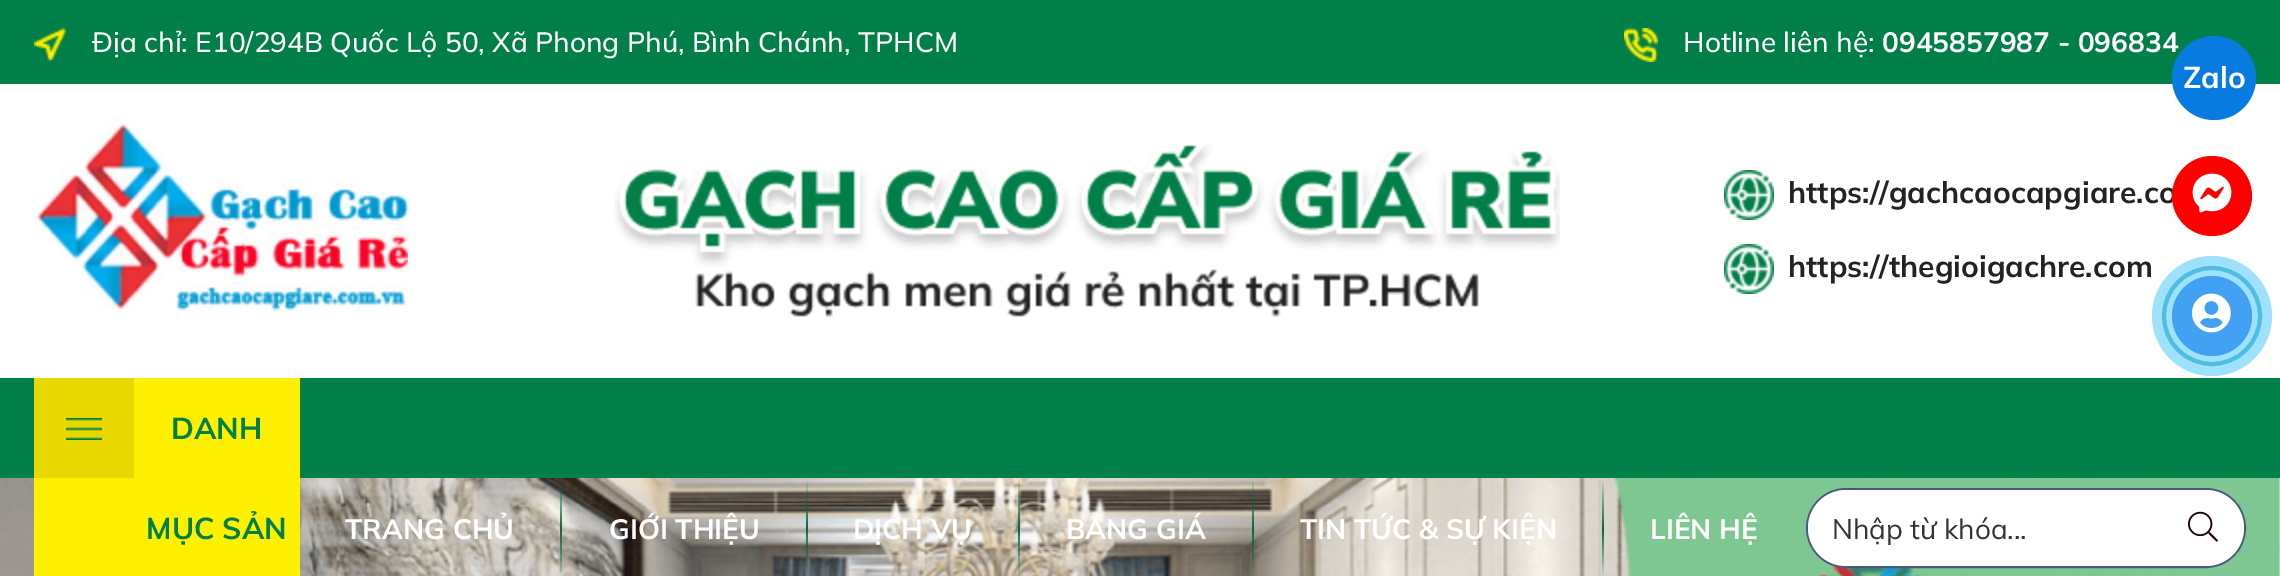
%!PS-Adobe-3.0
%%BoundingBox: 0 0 2280 576
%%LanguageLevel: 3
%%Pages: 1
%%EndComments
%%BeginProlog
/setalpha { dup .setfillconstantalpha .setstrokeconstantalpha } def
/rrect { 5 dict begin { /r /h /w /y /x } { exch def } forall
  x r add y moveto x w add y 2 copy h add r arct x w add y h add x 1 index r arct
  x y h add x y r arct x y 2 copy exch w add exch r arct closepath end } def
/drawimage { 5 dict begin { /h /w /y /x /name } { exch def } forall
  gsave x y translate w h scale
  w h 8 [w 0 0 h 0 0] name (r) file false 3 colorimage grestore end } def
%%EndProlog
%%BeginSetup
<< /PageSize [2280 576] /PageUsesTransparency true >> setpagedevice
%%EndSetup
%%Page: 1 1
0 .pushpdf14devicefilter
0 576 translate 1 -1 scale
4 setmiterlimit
1 setgray
0 0 2280 576 rectfill
0 0.498 0.282 setrgbcolor
0 0 2280 84 rectfill
(images/1.raw) 34 28 32 33 drawimage
(images/2.raw) 1624 28 34 34 drawimage
(images/3.raw) 34 116 374 195 drawimage
(images/4.raw) 614 144 946 173 drawimage
(images/5.raw) 1724 170 50 50 drawimage
(images/5.raw) 1724 244 50 50 drawimage
0.502 0.769 0.863 setrgbcolor
4 setlinewidth
newpath 2212 316 48 0 360 arc closepath stroke
0.38 setalpha
0 0.686 0.949 setrgbcolor
newpath 2212 316 60 0 360 arc closepath fill
1 setalpha
0.263 0.631 0.953 setrgbcolor
newpath 2212 316 40 0 360 arc closepath fill
(images/7.raw) 2192 293 39 40 drawimage
0 0.498 0.282 setrgbcolor
0 378 2280 100 rectfill
(images/15.raw) 0 478 2280 98 drawimage
1 0.941 0 setrgbcolor
34 378 266 198 rectfill
0.906 0.851 0 setrgbcolor
34 378 100 100 rectfill
(images/8.raw) 66 418 36 22 drawimage
(images/9.raw) 560 481 2 95 drawimage
(images/10.raw) 806 479 2 97 drawimage
(images/11.raw) 1018 479 2 97 drawimage
(images/12.raw) 1252 479 2 97 drawimage
(images/13.raw) 1602 479 2 97 drawimage
0.278 0.349 0.494 setrgbcolor
2 setlinewidth
1807 489 438 78 39 rrect stroke
1 setgray
newpath 1846 490 moveto 2164 490 lineto 2164 566 lineto 1846 566 lineto 1825 566 1808 549 1808 528 curveto 1808 507 1825 490 1846 490 curveto closepath fill
newpath 2164 490 moveto 2206 490 lineto 2227 490 2244 507 2244 528 curveto 2244 549 2227 566 2206 566 curveto 2164 566 lineto closepath fill
(images/14.raw) 2188 511 30 31 drawimage
/Mulish-Medium [28 0 0 -28 0 0] selectfont
92 52 moveto (Địa chỉ: E10/294B Quốc Lộ 50, Xã Phong Phú, Bình Chánh, TPHCM) show
1683 52 moveto (Hotline liên hệ:) show
/Mulish-Bold [28 0 0 -28 0 0] selectfont
1882 52 moveto (0945857987 - 096834) show
/Mulish-Bold [30 0 0 -30 0 0] selectfont
0.137 setgray
1788 203 moveto (https://gachcaocapgiare.co) show
1788 277 moveto (https://thegioigachre.com) show
0.031 0.482 0.878 setrgbcolor
newpath 2214 78 42 0 360 arc closepath fill
/Muli-Bold [30 0 0 -30 0 0] selectfont
1 setgray
2183 88 moveto (Zalo) show
1 0 0 setrgbcolor
newpath 2212 196 40 0 360 arc closepath fill
(images/6.raw) 2192 173 40 40 drawimage
0 0.498 0.282 setrgbcolor
171 439 moveto (DANH) show
146 539 moveto (MỤC SẢN) show
/Mulish-Bold [28 0 0 -28 0 0] selectfont
1 setgray
345 539 moveto (TRANG CHỦ) show
609 539 moveto (GIỚI THIỆU) show
853 539 moveto (DỊCH VỤ) show
1066 539 moveto (BẢNG GIÁ) show
1300 539 moveto (TIN TỨC & SỰ KIỆN) show
1650 539 moveto (LIÊN HỆ) show
/Muli-Regular [28 0 0 -28 0 0] selectfont
0.2 setgray
1832 539 moveto (Nhập từ khóa...) show
.poppdf14devicefilter showpage
%%EOF
